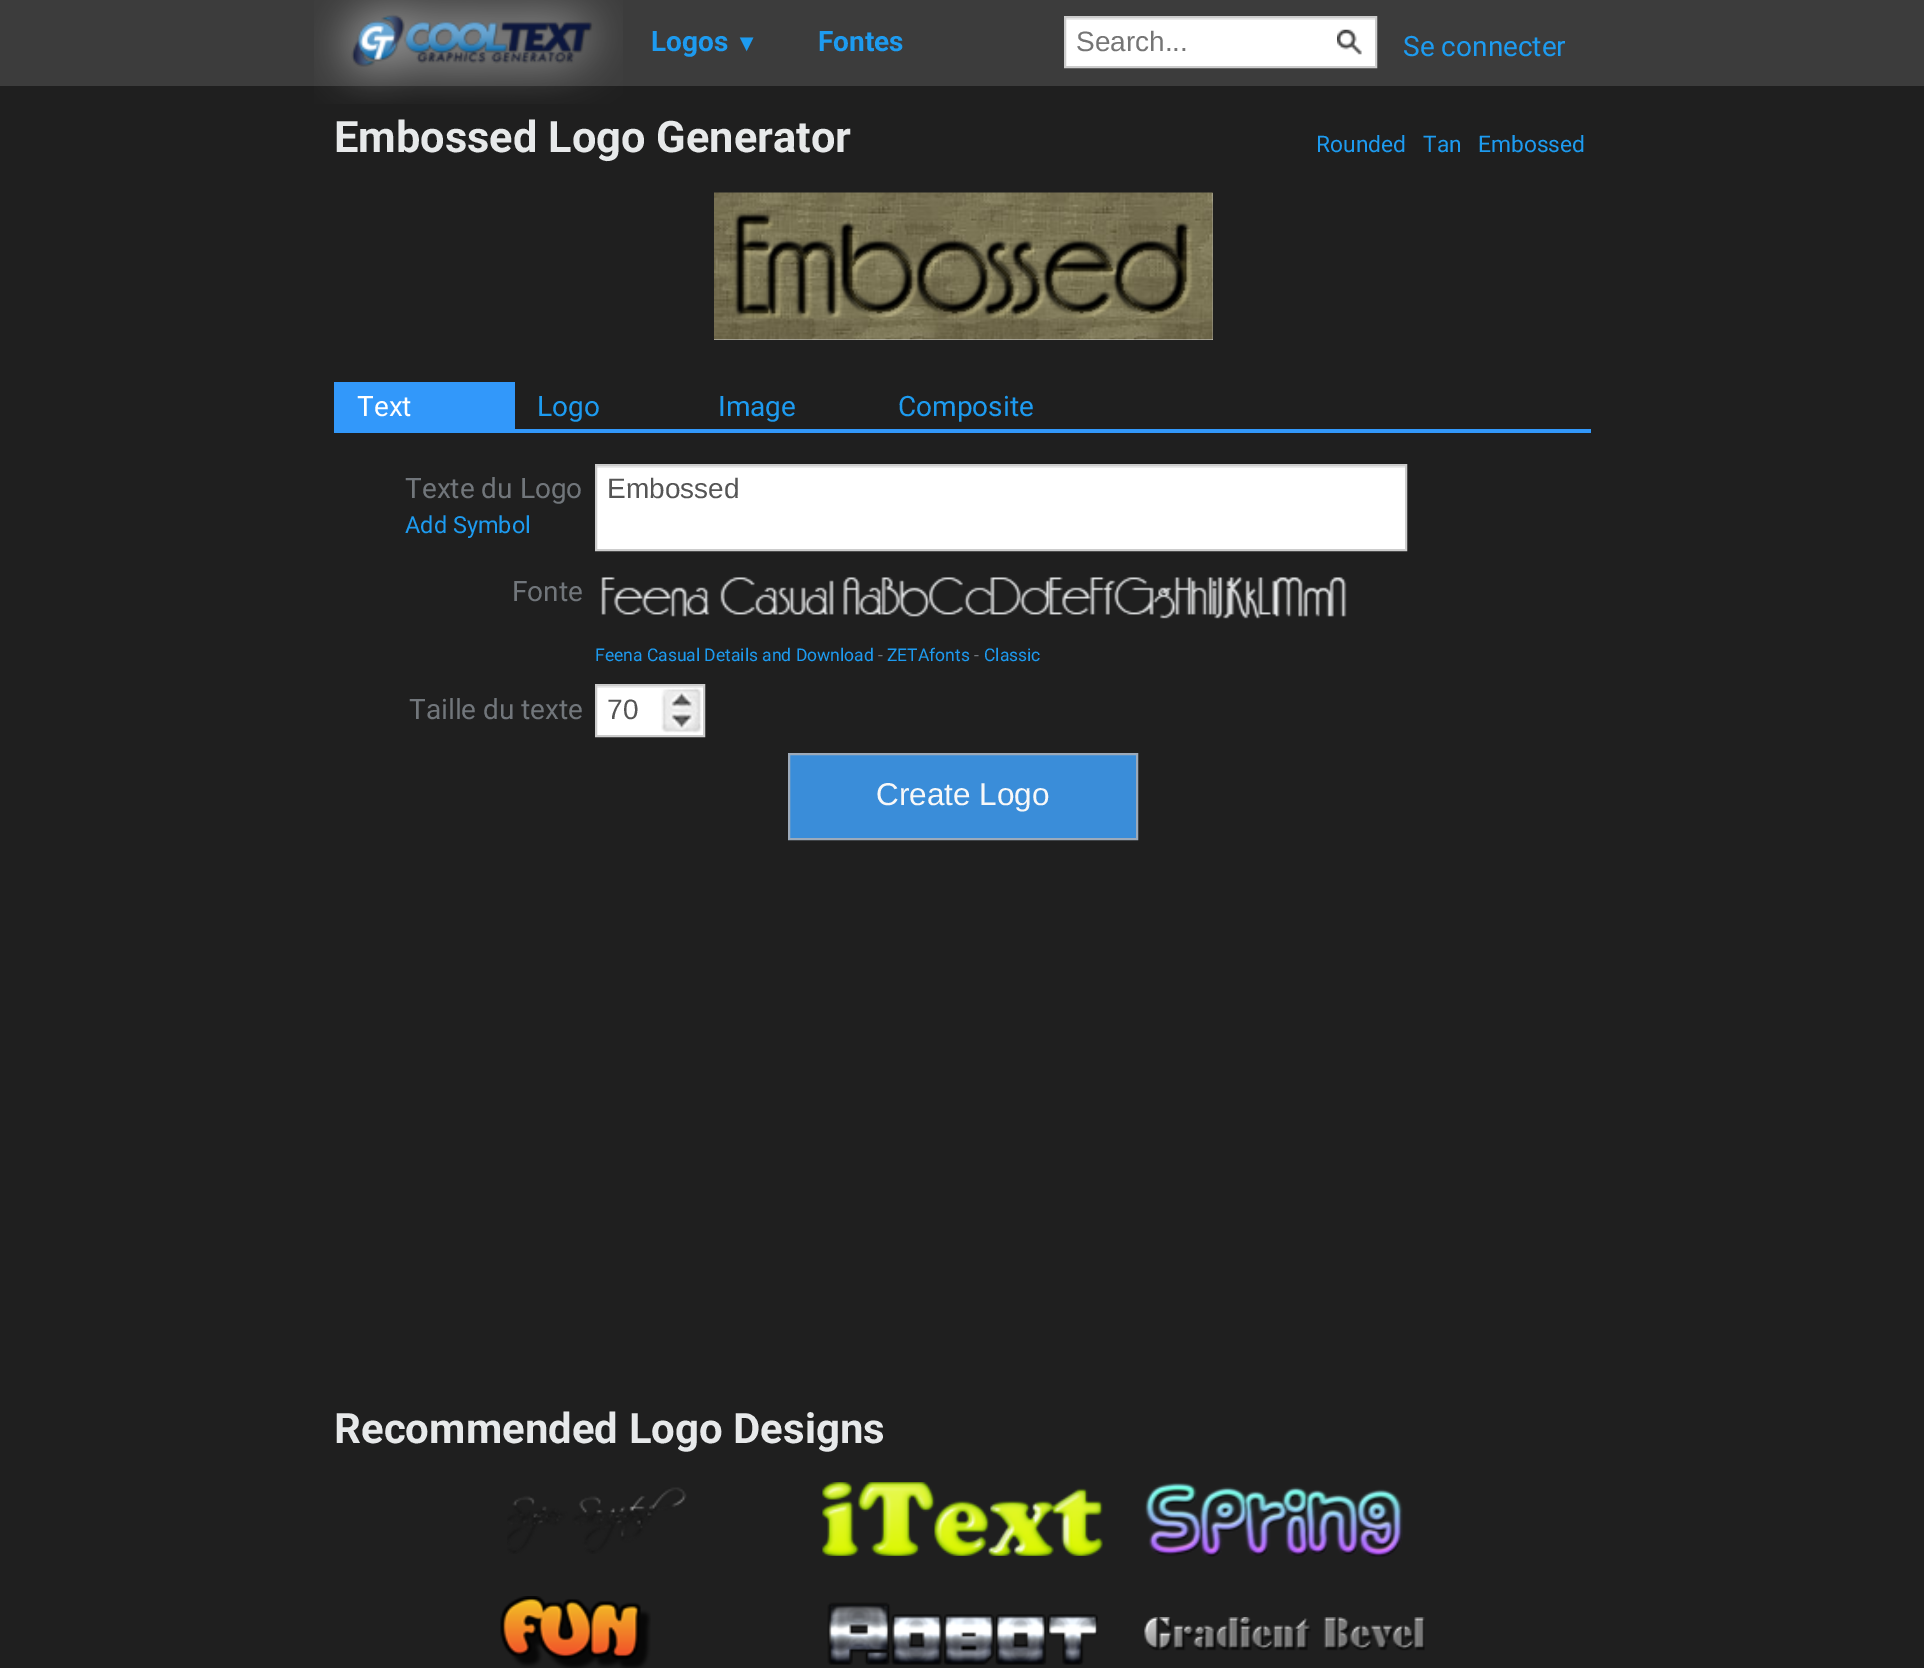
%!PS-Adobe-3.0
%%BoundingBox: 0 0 1924 1668
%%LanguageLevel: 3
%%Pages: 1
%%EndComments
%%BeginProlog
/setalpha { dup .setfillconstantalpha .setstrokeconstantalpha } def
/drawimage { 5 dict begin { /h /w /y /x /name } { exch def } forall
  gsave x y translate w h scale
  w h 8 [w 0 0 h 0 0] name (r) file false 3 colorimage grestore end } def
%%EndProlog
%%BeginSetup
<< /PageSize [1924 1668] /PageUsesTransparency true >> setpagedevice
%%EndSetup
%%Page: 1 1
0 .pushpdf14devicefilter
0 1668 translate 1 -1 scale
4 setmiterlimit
0.122 setgray
0 0 1924 1668 rectfill
0.235 setgray
0 0 1924 86 rectfill
(images/1.raw) 314 0 309 104 drawimage
1 setgray
1066 20 309 46 rectfill
(images/2.raw) 1337 29 25 26 drawimage
0.925 setgray
1066 18 310 2 rectfill
0.8 setgray
2 setlinewidth
1065 17 311 50 rectstroke
0.871 setgray
714 193 499 147 rectfill
(images/3.raw) 714 192 499 148 drawimage
0.196 0.596 0.98 setrgbcolor
334 429 1257 4 rectfill
334 382 181 47 rectfill
1 setgray
597 468 808 81 rectfill
0.925 setgray
597 466 808 2 rectfill
0.8 setgray
596 465 810 85 rectstroke
(images/4.raw) 601 577 746 42 drawimage
1 setgray
597 686 106 49 rectfill
(images/5.raw) 661 687 41 46 drawimage
0.07 setalpha
0 setgray
597 686 107 2 rectfill
1 setalpha
0.8 setgray
596 685 108 51 rectstroke
0.227 0.553 0.851 setrgbcolor
newpath 789 754 moveto 1137 754 lineto 1137 839 lineto 789 839 lineto closepath gsave fill grestore
0.612 0.667 0.729 setrgbcolor
stroke
(images/6.raw) 507 1487 180 67 drawimage
(images/7.raw) 822 1482 281 74 drawimage
(images/8.raw) 1144 1482 259 75 drawimage
(images/9.raw) 500 1596 151 72 drawimage
(images/10.raw) 827 1602 271 63 drawimage
(images/11.raw) 1144 1617 281 34 drawimage
/Roboto-Bold [28 0 0 -28 0 0] selectfont
0.114 0.608 0.941 setrgbcolor
651 51 moveto (Logos) show
/LiberationSans-Regular [23.5 0 0 -23.5 0 0] selectfont
735 51 moveto (▼) show
/Roboto-Bold [28 0 0 -28 0 0] selectfont
818 51 moveto (Fontes) show
/LiberationSans-Regular [28 0 0 -28 0 0] selectfont
0.459 setgray
1076 51 moveto (Search...) show
/Roboto-Regular [28 0 0 -28 0 0] selectfont
0.114 0.608 0.941 setrgbcolor
1403 56 moveto (Se connecter) show
/Roboto-Bold [43.4 0 0 -43.4 0 0] selectfont
0.906 0.914 0.918 setrgbcolor
334 152 moveto (Embossed Logo Generator) show
/Roboto-Regular [22.75 0 0 -22.75 0 0] selectfont
0.114 0.608 0.941 setrgbcolor
1316 152 moveto (Rounded) show
1423 152 moveto (Tan) show
1478 152 moveto (Embossed) show
/Roboto-Regular [28 0 0 -28 0 0] selectfont
1 setgray
357 416 moveto (Text) show
0.114 0.608 0.941 setrgbcolor
537 416 moveto (Logo) show
718 416 moveto (Image) show
898 416 moveto (Composite) show
0.443 0.463 0.482 setrgbcolor
405 498 moveto (Texte du Logo) show
/Roboto-Regular [23.5 0 0 -23.5 0 0] selectfont
0.114 0.608 0.941 setrgbcolor
405 533 moveto (Add Symbol) show
/LiberationSans-Regular [28 0 0 -28 0 0] selectfont
0.333 setgray
607 498 moveto (Embossed) show
/Roboto-Regular [28 0 0 -28 0 0] selectfont
0.443 0.463 0.482 setrgbcolor
512 601 moveto (Fonte) show
/Roboto-Regular [17.5 0 0 -17.5 0 0] selectfont
0.114 0.608 0.941 setrgbcolor
595 661 moveto (Feena Casual Details and Download) show
0.443 0.463 0.482 setrgbcolor
878 661 moveto (-) show
0.114 0.608 0.941 setrgbcolor
887 661 moveto (ZETAfonts) show
0.443 0.463 0.482 setrgbcolor
974 661 moveto (-) show
0.114 0.608 0.941 setrgbcolor
984 661 moveto (Classic) show
/Roboto-Regular [28 0 0 -28 0 0] selectfont
0.443 0.463 0.482 setrgbcolor
409 719 moveto (Taille du texte) show
/LiberationSans-Regular [28 0 0 -28 0 0] selectfont
0.333 setgray
607 719 moveto (70) show
/LiberationSans-Regular [31.5 0 0 -31.5 0 0] selectfont
0.973 setgray
876 805 moveto (Create Logo) show
/Roboto-Bold [42 0 0 -42 0 0] selectfont
0.906 0.914 0.918 setrgbcolor
334 1443 moveto (Recommended Logo Designs) show
.poppdf14devicefilter showpage
%%EOF
